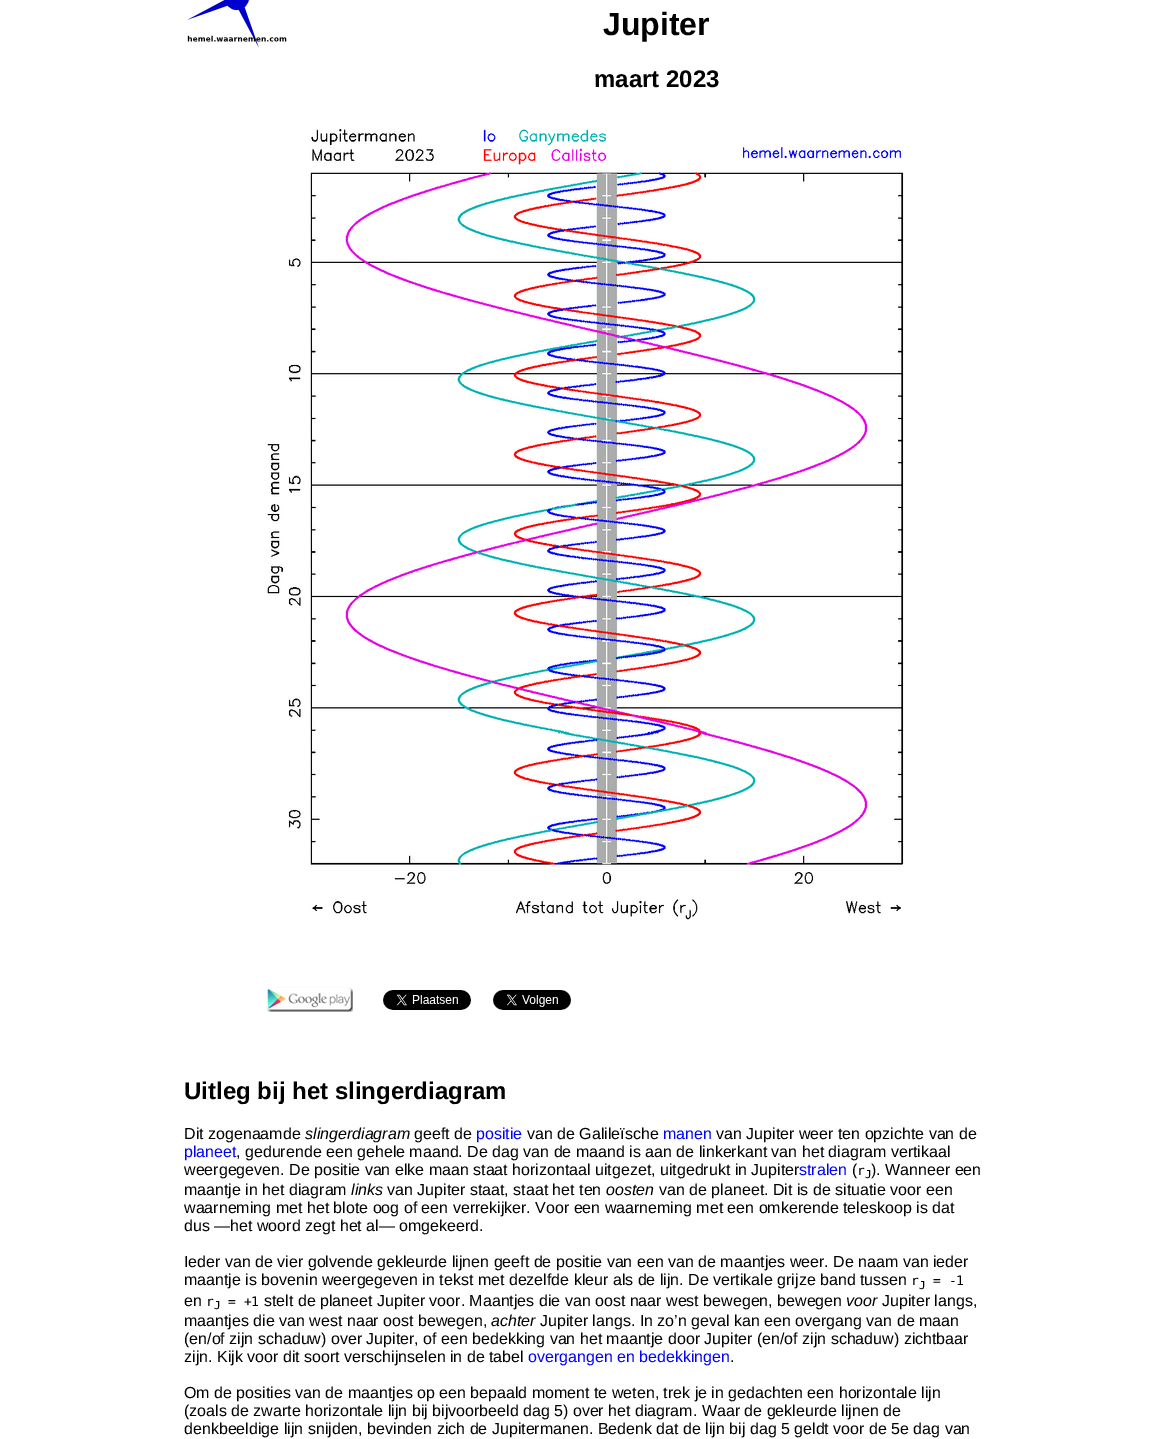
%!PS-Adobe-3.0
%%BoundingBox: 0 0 1167 1439
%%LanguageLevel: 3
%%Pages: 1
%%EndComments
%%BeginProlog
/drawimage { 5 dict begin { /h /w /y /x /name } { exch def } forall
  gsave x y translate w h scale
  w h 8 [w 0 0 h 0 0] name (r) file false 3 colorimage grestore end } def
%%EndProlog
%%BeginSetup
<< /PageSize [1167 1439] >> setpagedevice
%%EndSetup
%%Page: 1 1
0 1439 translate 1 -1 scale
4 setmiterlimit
1 setgray
0 0 1167 1439 rectfill
(images/1.raw) 187 0 100 48 drawimage
(images/2.raw) 267 127 637 793 drawimage
(images/3.raw) 266 987 87 25 drawimage
(images/4.raw) 383 990 88 20 drawimage
(images/5.raw) 493 990 78 20 drawimage
/LiberationSans-Bold [32 0 0 -32 0 0] selectfont
0 setgray
603 35 moveto (Jupiter) show
/LiberationSans-Bold [24 0 0 -24 0 0] selectfont
594 87 moveto (maart 2023) show
184 1099 moveto (Uitleg bij het slingerdiagram) show
/LiberationSans-Regular [16 0 0 -16 0 0] selectfont
184 1139 moveto (Dit zogenaamde) show
/LiberationSans-Italic [16 0 0 -16 0 0] selectfont
305 1139 moveto (slingerdiagram) show
/LiberationSans-Regular [16 0 0 -16 0 0] selectfont
414 1139 moveto (geeft de) show
0 0 1 setrgbcolor
476 1139 moveto (positie) show
0 setgray
527 1139 moveto (van de Galileïsche) show
0 0 1 setrgbcolor
663 1139 moveto (manen) show
0 setgray
716 1139 moveto (van Jupiter weer ten opzichte van de) show
0 0 1 setrgbcolor
184 1157 moveto (planeet) show
0 setgray
236 1157 moveto (, gedurende een gehele maand. De dag van de maand is aan de linkerkant van het diagram vertikaal) show
184 1175 moveto (weergegeven. De positie van elke maan staat horizontaal uitgezet, uitgedrukt in Jupiter) show
0 0 1 setrgbcolor
799 1175 moveto (stralen) show
0 setgray
852 1175 moveto (\() show
/DejaVuSansMono-Regular [13 0 0 -13 0 0] selectfont
857 1175 moveto (r) show
/DejaVuSansMono-Regular [11 0 0 -11 0 0] selectfont
865 1178 moveto (J) show
/LiberationSans-Regular [16 0 0 -16 0 0] selectfont
871 1175 moveto (\). Wanneer een) show
184 1195 moveto (maantje in het diagram) show
/LiberationSans-Italic [16 0 0 -16 0 0] selectfont
351 1195 moveto (links) show
/LiberationSans-Regular [16 0 0 -16 0 0] selectfont
387 1195 moveto (van Jupiter staat, staat het ten) show
/LiberationSans-Italic [16 0 0 -16 0 0] selectfont
606 1195 moveto (oosten) show
/LiberationSans-Regular [16 0 0 -16 0 0] selectfont
659 1195 moveto (van de planeet. Dit is de situatie voor een) show
184 1213 moveto (waarneming met het blote oog of een verrekijker. Voor een waarneming met een omkerende teleskoop is dat) show
184 1231 moveto (dus —het woord zegt het al— omgekeerd.) show
184 1267 moveto (Ieder van de vier golvende gekleurde lijnen geeft de positie van een van de maantjes weer. De naam van ieder) show
184 1285 moveto (maantje is bovenin weergegeven in tekst met dezelfde kleur als de lijn. De vertikale grijze band tussen) show
/DejaVuSansMono-Regular [13 0 0 -13 0 0] selectfont
911 1285 moveto (r) show
/DejaVuSansMono-Regular [11 0 0 -11 0 0] selectfont
919 1289 moveto (J) show
/DejaVuSansMono-Regular [13 0 0 -13 0 0] selectfont
933 1285 moveto (= -1) show
/LiberationSans-Regular [16 0 0 -16 0 0] selectfont
184 1306 moveto (en) show
/DejaVuSansMono-Regular [13 0 0 -13 0 0] selectfont
206 1306 moveto (r) show
/DejaVuSansMono-Regular [11 0 0 -11 0 0] selectfont
214 1309 moveto (J) show
/DejaVuSansMono-Regular [13 0 0 -13 0 0] selectfont
228 1306 moveto (= +1) show
/LiberationSans-Regular [16 0 0 -16 0 0] selectfont
264 1306 moveto (stelt de planeet Jupiter voor. Maantjes die van oost naar west bewegen, bewegen) show
/LiberationSans-Italic [16 0 0 -16 0 0] selectfont
846 1306 moveto (voor) show
/LiberationSans-Regular [16 0 0 -16 0 0] selectfont
882 1306 moveto (Jupiter langs,) show
184 1326 moveto (maantjes die van west naar oost bewegen,) show
/LiberationSans-Italic [16 0 0 -16 0 0] selectfont
491 1326 moveto (achter) show
/LiberationSans-Regular [16 0 0 -16 0 0] selectfont
540 1326 moveto (Jupiter langs. In zo’n geval kan een overgang van de maan) show
184 1344 moveto (\(en/of zijn schaduw\) over Jupiter, of een bedekking van het maantje door Jupiter \(en/of zijn schaduw\) zichtbaar) show
184 1362 moveto (zijn. Kijk voor dit soort verschijnselen in de tabel) show
0 0 1 setrgbcolor
528 1362 moveto (overgangen en bedekkingen) show
0 setgray
730 1362 moveto (.) show
184 1398 moveto (Om de posities van de maantjes op een bepaald moment te weten, trek je in gedachten een horizontale lijn) show
184 1416 moveto (\(zoals de zwarte horizontale lijn bij bijvoorbeeld dag 5\) over het diagram. Waar de gekleurde lijnen de) show
184 1434 moveto (denkbeeldige lijn snijden, bevinden zich de Jupitermanen. Bedenk dat de lijn bij dag 5 geldt voor de 5e dag van) show
showpage
%%EOF
